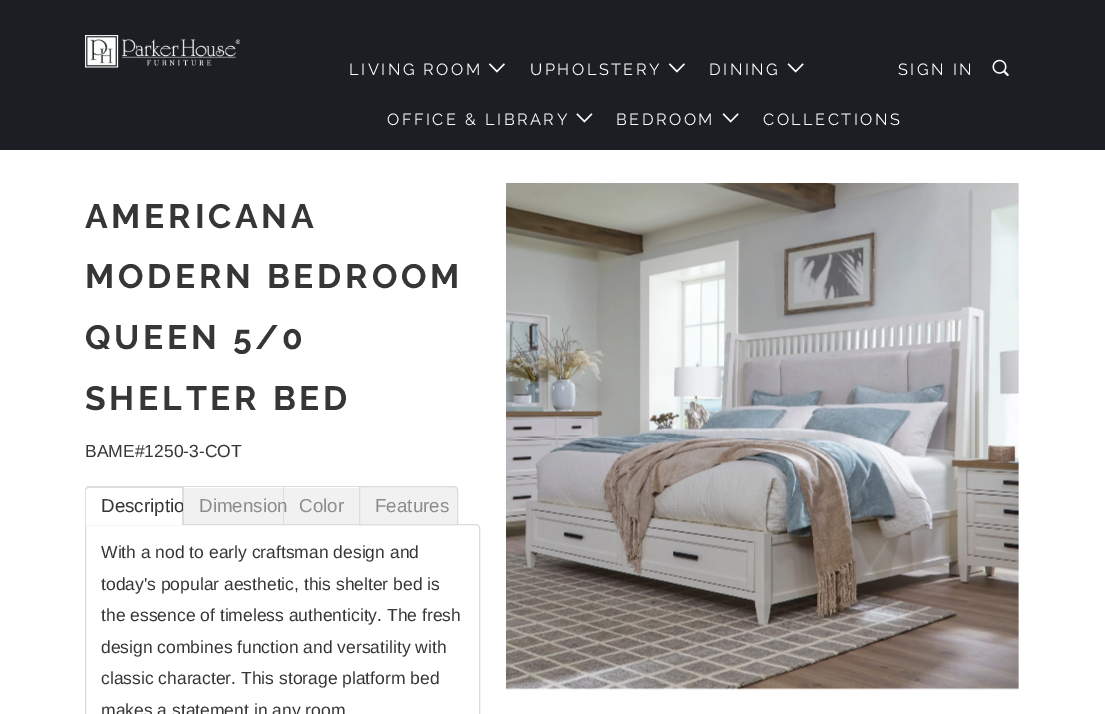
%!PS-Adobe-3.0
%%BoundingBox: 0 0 1105 714
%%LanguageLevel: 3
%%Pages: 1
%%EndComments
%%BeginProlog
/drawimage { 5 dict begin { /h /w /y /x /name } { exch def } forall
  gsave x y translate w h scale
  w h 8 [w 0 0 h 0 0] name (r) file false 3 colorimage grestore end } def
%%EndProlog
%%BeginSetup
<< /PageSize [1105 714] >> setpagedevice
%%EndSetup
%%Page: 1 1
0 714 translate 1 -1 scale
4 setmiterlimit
1 setgray
0 0 1105 714 rectfill
0.106 0.122 0.137 setrgbcolor
0 0 1105 150 rectfill
(images/1.raw) 85 35 155 33 drawimage
(images/2.raw) 488 63 17 10 drawimage
(images/2.raw) 668 63 17 10 drawimage
(images/3.raw) 787 63 17 10 drawimage
(images/4.raw) 576 113 17 10 drawimage
(images/3.raw) 722 113 17 10 drawimage
(images/5.raw) 992 59 17 17 drawimage
0.867 setgray
newpath 85.5 524.5 moveto 476 524.5 lineto 478 524.5 479.5 526 479.5 528 curveto 479.5 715 lineto 479.5 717 478 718.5 476 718.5 curveto 89 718.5 lineto 87 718.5 85.5 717 85.5 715 curveto closepath stroke
1 setgray
newpath 88.5 488 moveto 183 488 lineto 183 525 lineto 86 525 lineto 86 490.5 lineto 86 489 87 488 88.5 488 curveto closepath fill
0.867 setgray
newpath 89 486 moveto 184 486 lineto 184 525 lineto 85 525 lineto 85 490 lineto 85 488 87 486 89 486 curveto closepath 89 488 moveto 182 488 lineto 182 525 lineto 86 525 lineto 86 490 lineto 86 489 87 488 89 488 curveto closepath eofill
0.945 setgray
184 488 99 36 rectfill
0.867 setgray
184 486 175 1 rectfill
0.945 setgray
284 488 75 36 rectfill
0.867 setgray
283 486 1 39 rectfill
0.945 setgray
newpath 359.5 486.5 moveto 454 486.5 lineto 456 486.5 457.5 488 457.5 490 curveto 457.5 524.5 lineto 359.5 524.5 lineto closepath gsave fill grestore
0.867 setgray
stroke
(images/6.raw) 506 183 513 507 drawimage
/Raleway-Regular [16.25 0 0 -16.25 0 0] selectfont
1 setgray
349 75 moveto 2.5 0 (LIVING ROOM) ashow
530 75 moveto 2.5 0 (UPHOLSTERY) ashow
709 75 moveto 2.5 0 (DINING) ashow
387 125 moveto 2.5 0 (OFFICE & LIBRARY) ashow
616 125 moveto 2.5 0 (BEDROOM) ashow
763 125 moveto 2.5 0 (COLLECTIONS) ashow
898 75 moveto 2.5 0 (SIGN IN) ashow
/Raleway-Bold [33.75 0 0 -33.75 0 0] selectfont
0.212 setgray
85 228 moveto 3.75 0 (AMERICANA) ashow
85 288 moveto 3.75 0 (MODERN BEDROOM) ashow
85 349 moveto 3.75 0 (QUEEN 5/0) ashow
85 410 moveto 3.75 0 (SHELTER BED) ashow
/LiberationSans-Regular [17.5 0 0 -17.5 0 0] selectfont
85 457 moveto (BAME#1250-3-COT) show
gsave
newpath 88.5 488 moveto 183 488 lineto 183 525 lineto 86 525 lineto 86 490.5 lineto 86 489 87 488 88.5 488 curveto closepath clip newpath
/LiberationSans-Regular [18.75 0 0 -18.75 0 0] selectfont
101 512 moveto (Descriptio) show
grestore
/LiberationSans-Regular [18.75 0 0 -18.75 0 0] selectfont
0.553 setgray
199 512 moveto (Dimension) show
299 512 moveto (Color) show
375 512 moveto (Features) show
/LiberationSans-Regular [17.5 0 0 -17.5 0 0] selectfont
0.212 setgray
101 558 moveto (With a nod to early craftsman design and) show
101 590 moveto (today's popular aesthetic, this shelter bed is) show
101 621 moveto (the essence of timeless authenticity. The fresh) show
101 653 moveto (design combines function and versatility with) show
101 684 moveto (classic character. This storage platform bed) show
101 716 moveto (makes a statement in any room) show
showpage
%%EOF
